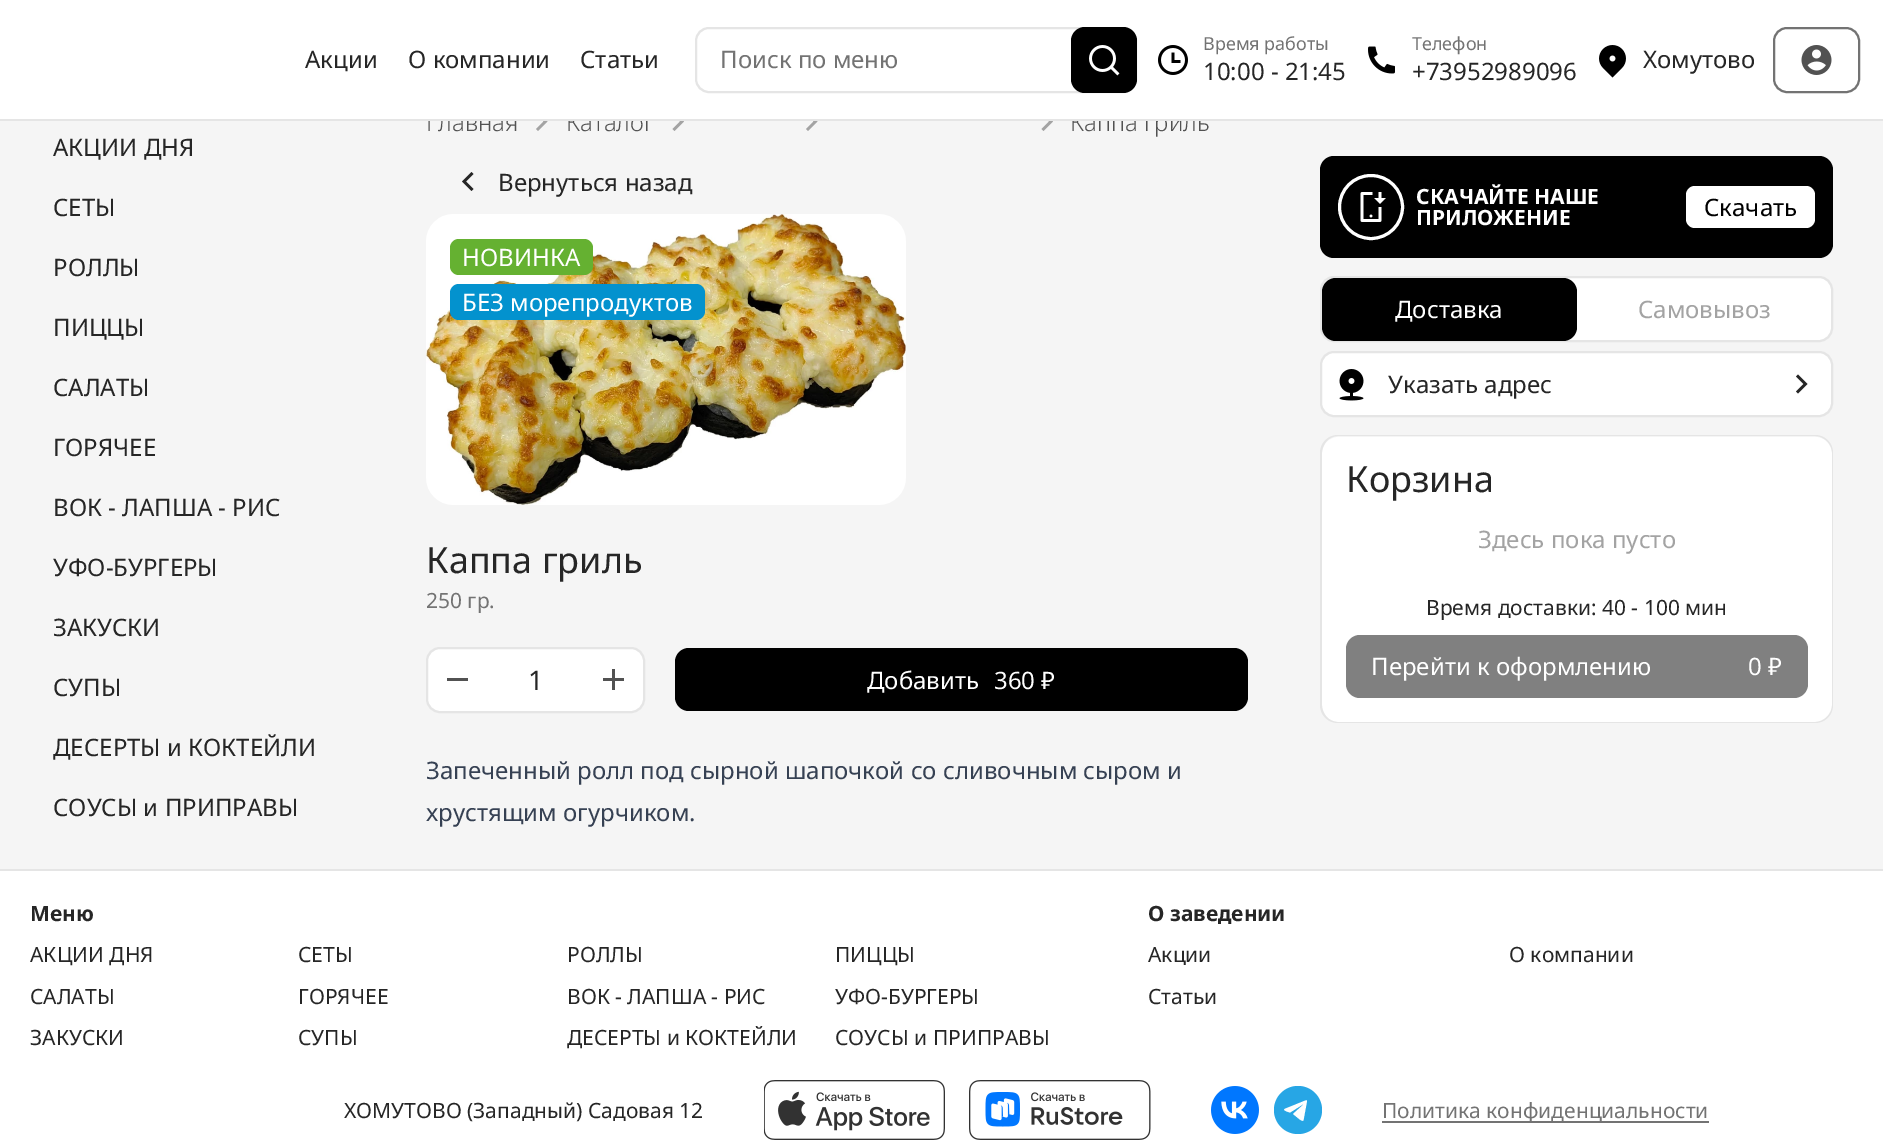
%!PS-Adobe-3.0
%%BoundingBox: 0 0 1883 1148
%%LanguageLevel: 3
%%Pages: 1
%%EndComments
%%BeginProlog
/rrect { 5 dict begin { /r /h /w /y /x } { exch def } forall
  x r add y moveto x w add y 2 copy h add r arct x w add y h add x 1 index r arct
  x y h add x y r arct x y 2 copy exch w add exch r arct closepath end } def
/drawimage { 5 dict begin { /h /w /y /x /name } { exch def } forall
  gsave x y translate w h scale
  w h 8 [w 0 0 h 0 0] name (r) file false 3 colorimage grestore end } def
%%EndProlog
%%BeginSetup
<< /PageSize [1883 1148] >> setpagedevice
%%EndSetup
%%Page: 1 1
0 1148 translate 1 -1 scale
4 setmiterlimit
0.961 setgray
0 0 1883 1148 rectfill
0.639 setgray
newpath 543.5 121.5 moveto 536 114 lineto 538 112 lineto 547.5 121.5 lineto 538 131 lineto 536 129 lineto closepath fill
newpath 680 121.5 moveto 672.5 114 lineto 674.5 112 lineto 684 121.5 lineto 674.5 131 lineto 672.5 129 lineto closepath fill
newpath 813.5 121.5 moveto 806 114 lineto 808 112 lineto 817.5 121.5 lineto 808 131 lineto 806 129 lineto closepath fill
newpath 1049 121.5 moveto 1041.5 114 lineto 1043.5 112 lineto 1053 121.5 lineto 1043.5 131 lineto 1041.5 129 lineto closepath fill
0.149 setgray
newpath 466 181.5 moveto 473.5 189 lineto 471.5 191 lineto 462 181.5 lineto 471.5 172 lineto 473.5 174 lineto closepath fill
(images/6.raw) 426 214 480 291 drawimage
0.396 0.694 0.192 setrgbcolor
450 239 143 36 9 rrect fill
0.012 0.573 0.808 setrgbcolor
450 284 255 36 9 rrect fill
1 setgray
427 648 217 64 13 rrect gsave fill grestore
0.898 setgray
2 setlinewidth
stroke
0.322 setgray
447 678 21 3 rectfill
(images/7.raw) 603 669 21 21 drawimage
0 setgray
675 648 573 63 14 rrect fill
1320 156 513 102 14 rrect fill
1 setgray
3 setlinewidth
newpath 1371 207 31.5 0 360 arc closepath stroke
(images/8.raw) 1360 192 26 30 drawimage
1686 186 129 42 9 rrect fill
1321 277 511 64 13 rrect gsave fill grestore
0.898 setgray
2 setlinewidth
stroke
0 setgray
1322 278 255 63 14 rrect fill
1 setgray
1321 352 511 64 13 rrect gsave fill grestore
0.898 setgray
stroke
(images/9.raw) 1339 369 25 32 drawimage
0.149 setgray
newpath 1803.5 384 moveto 1796 376.5 lineto 1798 374.5 lineto 1807.5 384 lineto 1798 393.5 lineto 1796 391.5 lineto closepath fill
1 setgray
newpath 1322 581 moveto 1832 581 lineto 1832 705 lineto 1832 714.5 1824.5 722 1815 722 curveto 1339 722 lineto 1329.5 722 1322 714.5 1322 705 curveto closepath fill
0.898 setgray
newpath 1320 580 moveto 1833 580 lineto 1833 705 lineto 1833 715 1825 723 1815 723 curveto 1338 723 lineto 1328 723 1320 715 1320 705 curveto closepath 1322 580 moveto 1832 580 lineto 1832 705 lineto 1832 714 1824 722 1815 722 curveto 1338 722 lineto 1329 722 1322 714 1322 705 curveto closepath eofill
1 setgray
newpath 1339 437 moveto 1815 437 lineto 1824.5 437 1832 444.5 1832 454 curveto 1832 581 lineto 1322 581 lineto 1322 454 lineto 1322 444.5 1329.5 437 1339 437 curveto closepath fill
0.898 setgray
newpath 1338 435 moveto 1815 435 lineto 1825 435 1833 443 1833 453 curveto 1833 580 lineto 1320 580 lineto 1320 453 lineto 1320 443 1328 435 1338 435 curveto closepath 1338 436 moveto 1815 436 lineto 1824 436 1832 444 1832 453 curveto 1832 580 lineto 1322 580 lineto 1322 453 lineto 1322 444 1329 436 1338 436 curveto closepath eofill
0.502 setgray
1346 635 462 63 14 rrect fill
1 setgray
0 871 1883 277 rectfill
0.898 setgray
0 869 1883 2 rectfill
(images/10.raw) 764 1080 181 60 drawimage
(images/11.raw) 969 1080 182 60 drawimage
(images/12.raw) 1211 1086 48 48 drawimage
0.153 0.651 0.898 setrgbcolor
newpath 1298 1110 24 0 360 arc closepath fill
0.996 setgray
newpath 1307 1101 moveto 1303.5 1120 lineto 1303 1123.5 1295 1115 1293 1114 curveto 1303 1105 lineto 1303.5 1104 lineto 1290 1112.5 lineto 1290 1112.5 1282.5 1110.5 1284.5 1109 curveto 1305.5 1100.5 lineto 1306 1100.5 1307 1100 1307 1101 curveto closepath fill
0.451 setgray
1382 1121 327 2 rectfill
/NotoSans-Regular [24 0 0 -24 0 0] selectfont
0.149 setgray
53 156 moveto (АКЦИИ ДНЯ) show
53 216 moveto (СЕТЫ) show
53 276 moveto (РОЛЛЫ) show
53 336 moveto (ПИЦЦЫ) show
53 396 moveto (САЛАТЫ) show
53 456 moveto (ГОРЯЧЕЕ) show
53 516 moveto (ВОК - ЛАПША - РИС) show
53 576 moveto (УФО-БУРГЕРЫ) show
53 636 moveto (ЗАКУСКИ) show
53 696 moveto (СУПЫ) show
53 756 moveto (ДЕСЕРТЫ и КОКТЕЙЛИ) show
53 816 moveto (СОУСЫ и ПРИПРАВЫ) show
/NotoSans-Light [24 0 0 -24 0 0] selectfont
0.322 setgray
426 131 moveto (Главная) show
566 131 moveto (Каталог) show
1070 131 moveto (Каппа гриль) show
1 setgray
0 0 1883 119 rectfill
0.451 setgray
1774 28 85 64 13 rrect stroke
(images/5.raw) 1801 45 31 30 drawimage
(images/4.raw) 1599 45 27 33 drawimage
(images/3.raw) 1368 46 27 28 drawimage
(images/2.raw) 1158 45 30 30 drawimage
0.898 setgray
696 28 440 64 13 rrect stroke
0 setgray
1071 27 66 66 14 rrect fill
(images/1.raw) 1089 45 31 31 drawimage
/NotoSans-Regular [24 0 0 -24 0 0] selectfont
0.451 setgray
720 68 moveto (Поиск по меню) show
0.149 setgray
1643 68 moveto (Хомутово) show
1203 80 moveto (10:00 - 21:45) show
/NotoSans-Regular [18 0 0 -18 0 0] selectfont
0.451 setgray
1203 50 moveto (Время работы) show
/NotoSans-Regular [24 0 0 -24 0 0] selectfont
0.149 setgray
1412 80 moveto (+73952989096) show
/NotoSans-Regular [18 0 0 -18 0 0] selectfont
0.451 setgray
1412 50 moveto (Телефон) show
/NotoSans-Regular [24 0 0 -24 0 0] selectfont
0.149 setgray
580 68 moveto (Статьи) show
408 68 moveto (О компании) show
305 68 moveto (Акции) show
0.898 setgray
0 119 1883 2 rectfill
0.149 setgray
498 191 moveto (Вернуться назад) show
1 setgray
462 266 moveto (НОВИНКА) show
462 311 moveto (БЕЗ морепродуктов) show
/NotoSans-Regular [36 0 0 -36 0 0] selectfont
0.149 setgray
426 573 moveto (Каппа гриль) show
/NotoSans-Regular [21 0 0 -21 0 0] selectfont
0.451 setgray
426 608 moveto (250 гр.) show
/NotoSans-Regular [27 0 0 -27 0 0] selectfont
0.149 setgray
528 690 moveto (1) show
/NotoSans-Regular [24 0 0 -24 0 0] selectfont
1 setgray
867 689 moveto (Добавить) show
994 689 moveto (360 ₽) show
0.212 0.255 0.325 setrgbcolor
426 779 moveto (Запеченный ролл под сырной шапочкой со сливочным сыром и) show
426 821 moveto (хрустящим огурчиком.) show
/NotoSans-Bold [21 0 0 -21 0 0] selectfont
1 setgray
1416 204 moveto (СКАЧАЙТЕ НАШЕ) show
1416 225 moveto (ПРИЛОЖЕНИЕ) show
/NotoSans-Regular [24 0 0 -24 0 0] selectfont
0 setgray
1704 216 moveto (Скачать) show
1 setgray
1395 318 moveto (Доставка) show
0.639 setgray
1638 318 moveto (Самовывоз) show
0.149 setgray
1388 393 moveto (Указать адрес) show
/NotoSans-Regular [36 0 0 -36 0 0] selectfont
1346 492 moveto (Корзина) show
/NotoSans-Regular [24 0 0 -24 0 0] selectfont
0.639 setgray
1478 548 moveto (Здесь пока пусто) show
/NotoSans-Regular [21 0 0 -21 0 0] selectfont
0.149 setgray
1426 615 moveto (Время доставки: 40 - 100 мин) show
/NotoSans-Regular [24 0 0 -24 0 0] selectfont
1 setgray
1371 675 moveto (Перейти к оформлению) show
1748 675 moveto (0 ₽) show
/NotoSans-Bold [21 0 0 -21 0 0] selectfont
0.149 setgray
30 921 moveto (Меню) show
/NotoSans-Regular [21 0 0 -21 0 0] selectfont
30 962 moveto (АКЦИИ ДНЯ) show
298 962 moveto (СЕТЫ) show
567 962 moveto (РОЛЛЫ) show
835 962 moveto (ПИЦЦЫ) show
30 1004 moveto (САЛАТЫ) show
298 1004 moveto (ГОРЯЧЕЕ) show
567 1004 moveto (ВОК - ЛАПША - РИС) show
835 1004 moveto (УФО-БУРГЕРЫ) show
30 1045 moveto (ЗАКУСКИ) show
298 1045 moveto (СУПЫ) show
567 1045 moveto (ДЕСЕРТЫ и КОКТЕЙЛИ) show
835 1045 moveto (СОУСЫ и ПРИПРАВЫ) show
/NotoSans-Bold [21 0 0 -21 0 0] selectfont
1148 921 moveto (О заведении) show
/NotoSans-Regular [21 0 0 -21 0 0] selectfont
1148 962 moveto (Акции) show
1509 962 moveto (О компании) show
1148 1004 moveto (Статьи) show
344 1118 moveto (ХОМУТОВО \(Западный\) Садовая 12) show
0.451 setgray
1382 1118 moveto (Политика конфиденциальности) show
showpage
%%EOF
